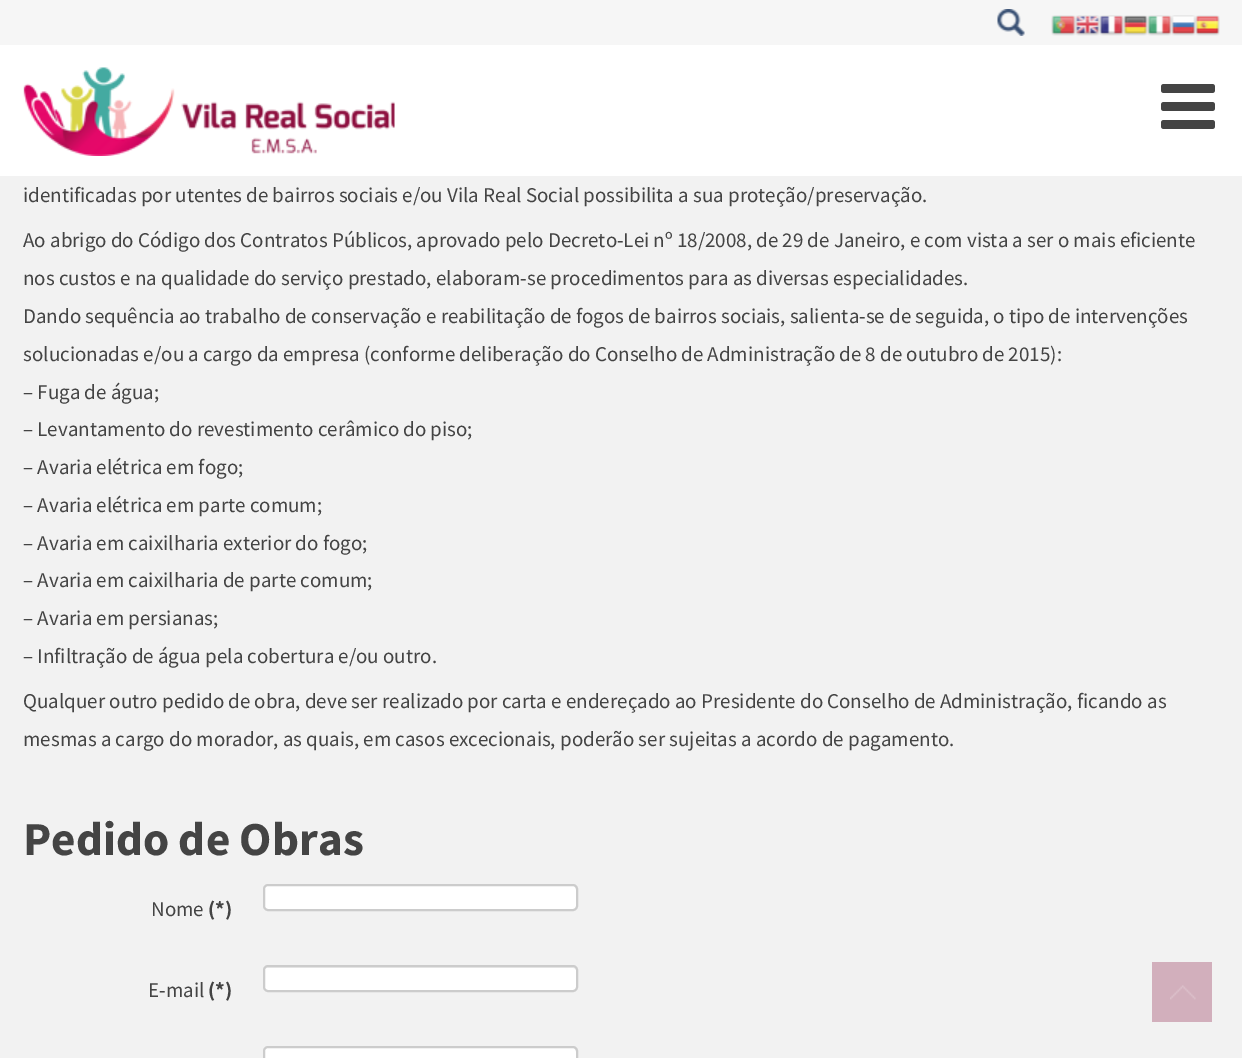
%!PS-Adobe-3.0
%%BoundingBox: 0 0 1242 1058
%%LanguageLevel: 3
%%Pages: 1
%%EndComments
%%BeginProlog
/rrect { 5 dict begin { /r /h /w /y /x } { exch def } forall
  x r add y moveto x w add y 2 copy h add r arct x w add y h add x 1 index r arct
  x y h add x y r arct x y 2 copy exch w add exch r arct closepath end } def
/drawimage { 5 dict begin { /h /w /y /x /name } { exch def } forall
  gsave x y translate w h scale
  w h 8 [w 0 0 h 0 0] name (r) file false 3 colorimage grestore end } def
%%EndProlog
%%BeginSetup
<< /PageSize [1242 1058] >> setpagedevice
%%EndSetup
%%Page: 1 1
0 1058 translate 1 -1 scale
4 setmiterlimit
0.949 setgray
0 0 1242 1058 rectfill
0.965 setgray
0 0 1242 45 rectfill
(images/1.raw) 997 9 28 27 drawimage
(images/2.raw) 1051 15 25 21 drawimage
(images/3.raw) 1075 15 25 21 drawimage
(images/4.raw) 1099 15 25 21 drawimage
(images/5.raw) 1123 15 25 21 drawimage
(images/6.raw) 1147 15 25 21 drawimage
(images/7.raw) 1171 15 25 21 drawimage
(images/8.raw) 1195 15 25 21 drawimage
1 setgray
0 45 1242 131 rectfill
(images/9.raw) 23 67 372 89 drawimage
(images/10.raw) 1161 84 54 45 drawimage
263 884 315 27 5 rrect fill
0.925 setgray
newpath 267 886 moveto 573 886 lineto 575 886 576 888 576 890 curveto 576 888 lineto 576 886 575 885 573 885 curveto 267 885 lineto 265 885 264 886 264 888 curveto 264 890 lineto 264 888 265 886 267 886 curveto closepath fill
0.8 setgray
2 setlinewidth
264 885 313 25 4 rrect stroke
1 setgray
263 965 315 27 5 rrect fill
0.925 setgray
newpath 267 968 moveto 573 968 lineto 575 968 576 969 576 970 curveto 575 967 lineto 574 966 lineto 267 966 lineto 265 966 264 968 264 970 curveto 264 969 265 968 267 968 curveto closepath fill
0.8 setgray
264 966 313 25 4 rrect stroke
1 setgray
263 1046 315 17 5 rrect fill
0.925 setgray
newpath 267 1048 moveto 573 1048 lineto 575 1048 576 1050 576 1052 curveto 576 1050 lineto 576 1048 575 1047 573 1047 curveto 267 1047 lineto 265 1047 264 1048 264 1050 curveto 264 1052 lineto 264 1050 265 1048 267 1048 curveto closepath fill
0.8 setgray
264 1047 313 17 4 rrect stroke
0.824 0.686 0.737 setrgbcolor
1152 962 60 60 rectfill
(images/11.raw) 1170 985 26 15 drawimage
/SourceSansPro-Regular [21 0 0 -21 0 0] selectfont
0.267 setgray
23 202 moveto (identificadas por utentes de bairros sociais e/ou Vila Real Social possibilita a sua proteção/preservação.) show
23 247 moveto (Ao abrigo do Código dos Contratos Públicos, aprovado pelo Decreto-Lei nº 18/2008, de 29 de Janeiro, e com vista a ser o mais eficiente) show
23 285 moveto (nos custos e na qualidade do serviço prestado, elaboram-se procedimentos para as diversas especialidades.) show
23 323 moveto (Dando sequência ao trabalho de conservação e reabilitação de fogos de bairros sociais, salienta-se de seguida, o tipo de intervenções) show
23 361 moveto (solucionadas e/ou a cargo da empresa \(conforme deliberação do Conselho de Administração de 8 de outubro de 2015\):) show
23 399 moveto (– Fuga de água;) show
23 436 moveto (– Levantamento do revestimento cerâmico do piso;) show
23 474 moveto (– Avaria elétrica em fogo;) show
23 512 moveto (– Avaria elétrica em parte comum;) show
23 550 moveto (– Avaria em caixilharia exterior do fogo;) show
23 587 moveto (– Avaria em caixilharia de parte comum;) show
23 625 moveto (– Avaria em persianas;) show
23 663 moveto (– Infiltração de água pela cobertura e/ou outro.) show
23 708 moveto (Qualquer outro pedido de obra, deve ser realizado por carta e endereçado ao Presidente do Conselho de Administração, ficando as) show
23 746 moveto (mesmas a cargo do morador, as quais, em casos excecionais, poderão ser sujeitas a acordo de pagamento.) show
/SourceSansPro-Bold [47.25 0 0 -47.25 0 0] selectfont
23 855 moveto (Pedido de Obras) show
/SourceSansPro-Regular [21 0 0 -21 0 0] selectfont
151 916 moveto (Nome) show
/SourceSansPro-Bold [21 0 0 -21 0 0] selectfont
208 916 moveto (\(*\)) show
/SourceSansPro-Regular [21 0 0 -21 0 0] selectfont
148 997 moveto (E-mail) show
/SourceSansPro-Bold [21 0 0 -21 0 0] selectfont
208 997 moveto (\(*\)) show
showpage
%%EOF
